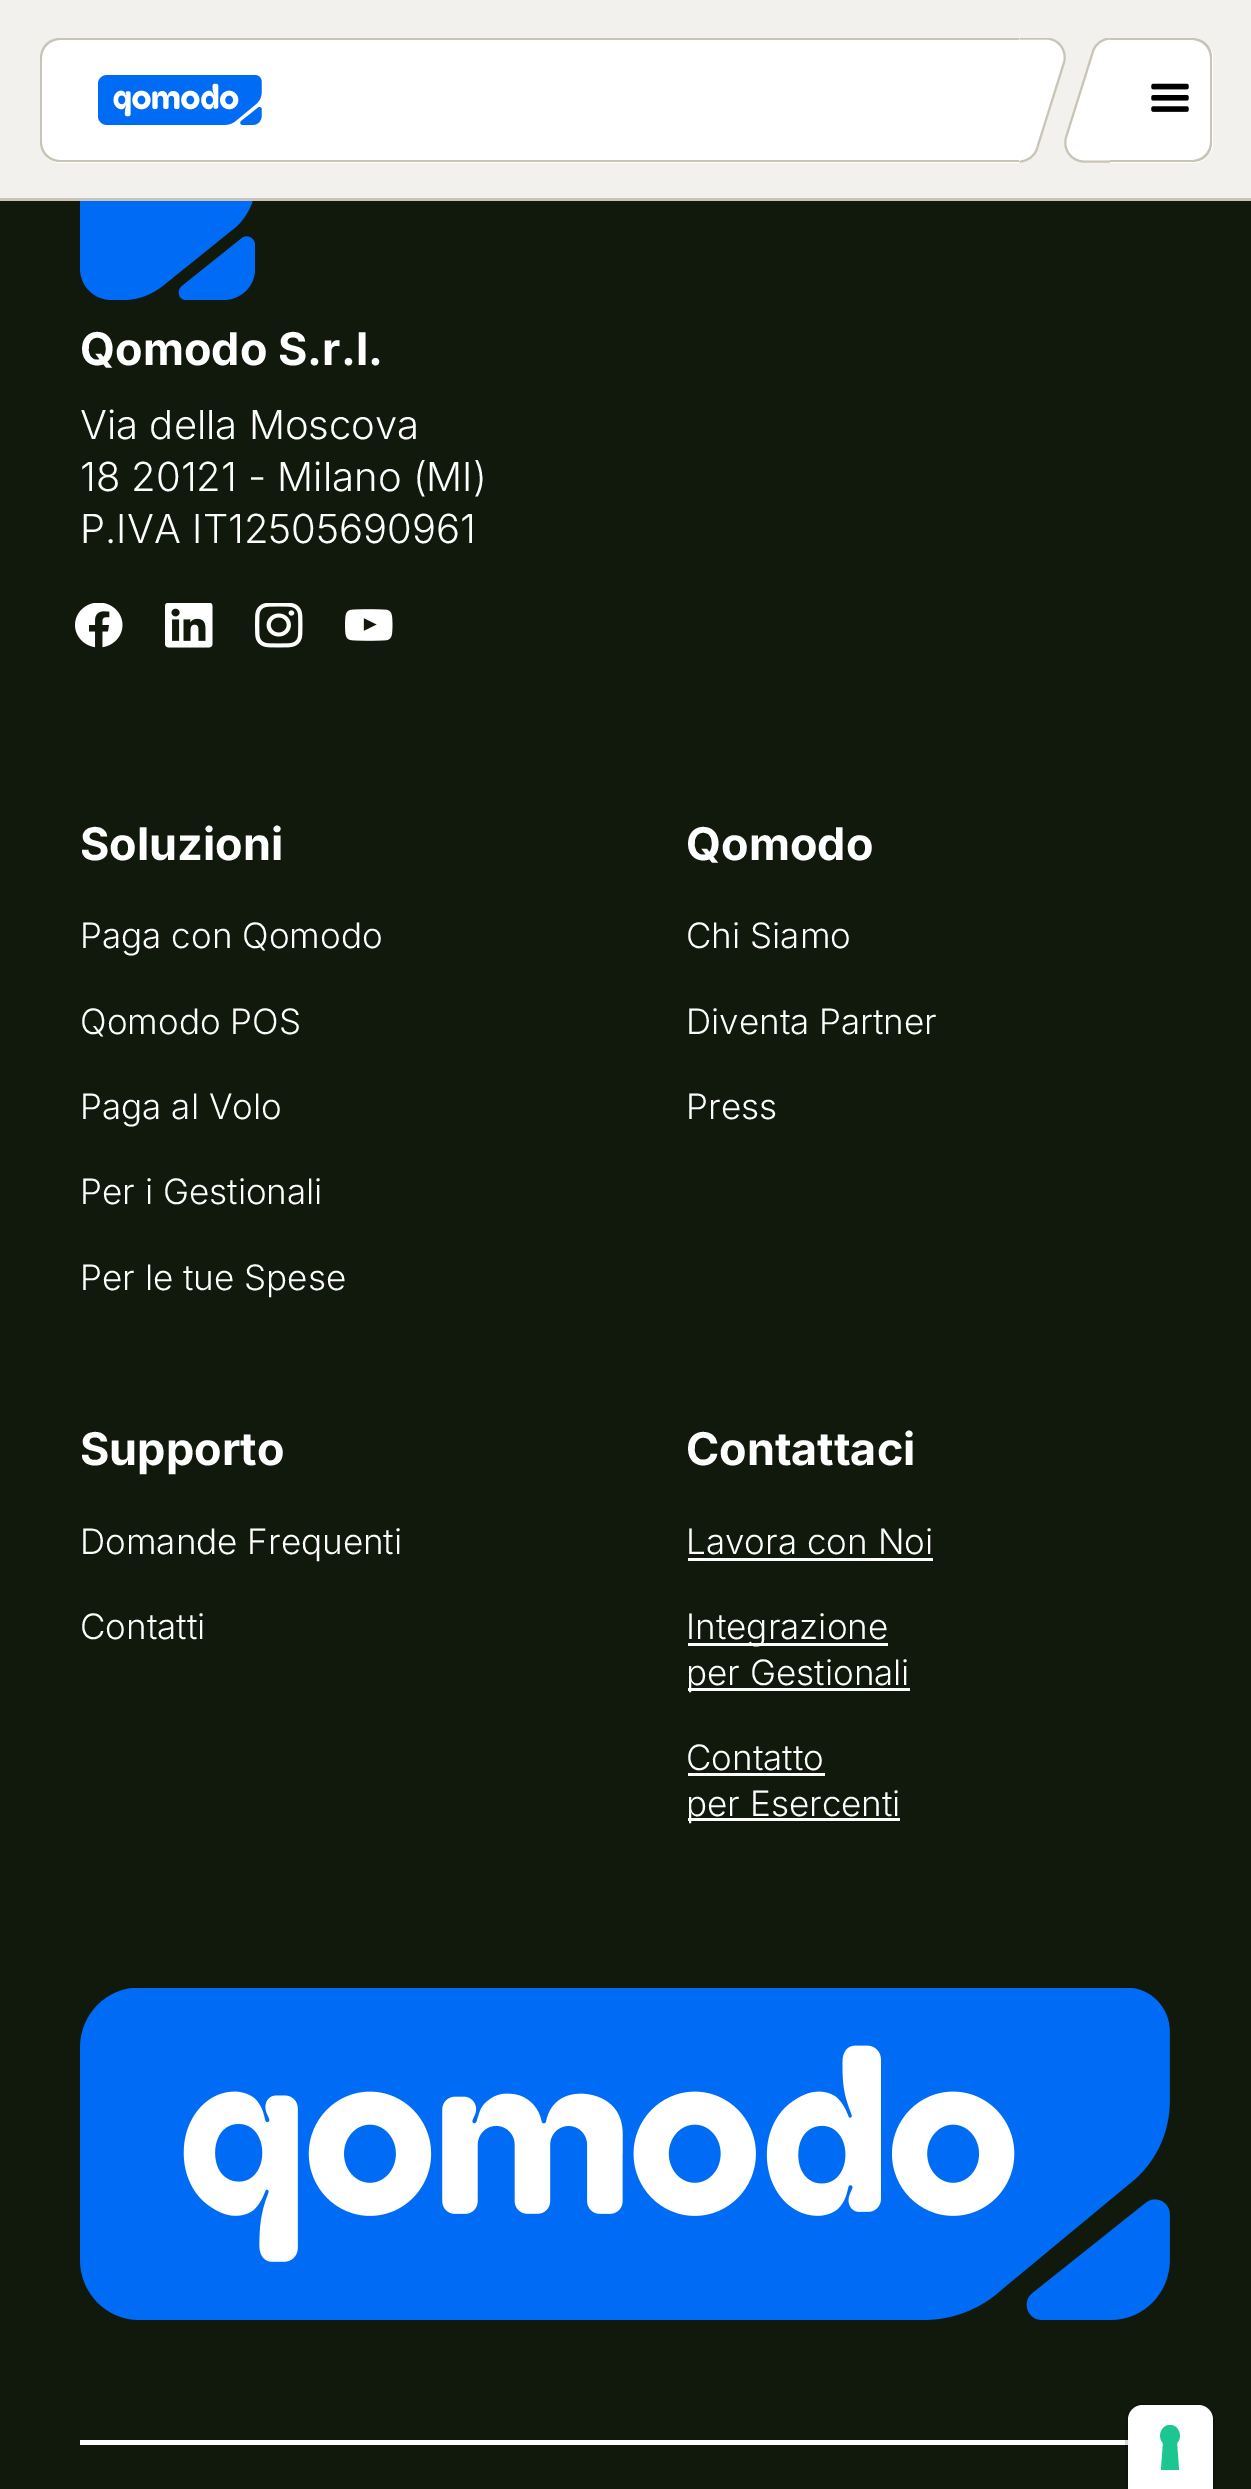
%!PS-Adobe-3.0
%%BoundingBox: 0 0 1251 2489
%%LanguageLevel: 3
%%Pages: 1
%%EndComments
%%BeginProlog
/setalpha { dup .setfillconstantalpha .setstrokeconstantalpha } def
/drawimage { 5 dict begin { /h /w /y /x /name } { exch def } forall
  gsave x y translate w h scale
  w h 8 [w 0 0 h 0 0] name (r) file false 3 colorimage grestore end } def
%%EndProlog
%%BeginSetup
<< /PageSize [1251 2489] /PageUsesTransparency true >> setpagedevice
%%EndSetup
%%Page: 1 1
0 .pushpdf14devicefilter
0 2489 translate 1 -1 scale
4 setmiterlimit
0.067 0.098 0.047 setrgbcolor
0 0 1251 2489 rectfill
0 0.42 0.957 setrgbcolor
newpath 165 284 moveto 237 226 lineto 248 215 255 201 255 185 curveto 255 148 lineto 255 135 245 125 232 125 curveto 112 125 lineto 94 125 80 139 80 157 curveto 80 268 lineto 80 286 94 300 112 300 curveto 123 300 lineto 139 300 153 294 165 284 curveto closepath fill
0.953 0.945 0.933 setrgbcolor
0 0 1251 198 rectfill
1 setgray
newpath 60 38 moveto 1020 38 lineto 1020 163 lineto 60 163 lineto 49 163 40 154 40 143 curveto 40 58 lineto 40 47 49 38 60 38 curveto closepath fill
0.792 0.769 0.718 setrgbcolor
newpath 60 38 moveto 1020 38 lineto 1020 162 lineto 60 162 lineto 49 162 40 154 40 142 curveto 40 58 lineto 40 46 49 38 60 38 curveto closepath 60 40 moveto 1020 40 lineto 1020 160 lineto 60 160 lineto 50 160 42 152 42 142 curveto 42 58 lineto 42 48 50 40 60 40 curveto closepath eofill
(images/1.raw) 98 75 164 50 drawimage
1 setgray
newpath 1111 162 moveto 1084 162 lineto 1071 162 1062 149 1066 138 curveto 1093 52 lineto 1095 44 1102 38 1111 38 curveto fill
gsave
1063 38 50 125 rectclip
0.792 0.769 0.718 setrgbcolor
2 setlinewidth
newpath 1110.5 161.5 moveto 1084 161.5 lineto 1071.5 161.5 1062.5 149.5 1066 137.5 curveto 1093 51.5 lineto 1095 44 1102.5 38.5 1110.5 38.5 curveto stroke
grestore
newpath 1019 38 moveto 1046 38 lineto 1059 38 1068 51 1064 62 curveto 1037 148 lineto 1035 156 1028 162 1019 162 curveto fill
gsave
1018 38 50 125 rectclip
0.792 0.769 0.718 setrgbcolor
2 setlinewidth
newpath 1019.5 38.5 moveto 1046 38.5 lineto 1058.5 38.5 1067.5 50.5 1064 62.5 curveto 1037 148.5 lineto 1035 156 1027.5 161.5 1019.5 161.5 curveto stroke
grestore
newpath 1110 38 moveto 1193 38 lineto 1204 38 1213 47 1213 58 curveto 1213 143 lineto 1213 154 1204 163 1193 163 curveto 1110 163 lineto closepath fill
0.792 0.769 0.718 setrgbcolor
newpath 1110 38 moveto 1192 38 lineto 1204 38 1212 46 1212 58 curveto 1212 142 lineto 1212 154 1204 162 1192 162 curveto 1110 162 lineto closepath 1110 40 moveto 1192 40 lineto 1202 40 1210 48 1210 58 curveto 1210 142 lineto 1210 152 1202 160 1192 160 curveto 1110 160 lineto closepath eofill
(images/2.raw) 1151 83 38 29 drawimage
0 198 1251 3 rectfill
0 0.42 0.957 setrgbcolor
newpath 255 245 moveto 255 269 lineto 255 286 241 300 223 300 curveto 186 300 lineto 179 300 176 291 182 286 curveto 242 238 lineto 247 234 255 238 255 245 curveto closepath fill
(images/3.raw) 75 603 48 45 drawimage
(images/4.raw) 165 603 48 45 drawimage
(images/5.raw) 255 603 48 45 drawimage
(images/6.raw) 345 609 48 32 drawimage
1 setgray
688 1558 245 3 rectfill
688 1643 200 3 rectfill
688 1688 222 3 rectfill
688 1773 137 3 rectfill
688 1818 212 3 rectfill
(images/7.raw) 80 1988 1090 332 drawimage
80 2440 1048 5 rectfill
0.15 setalpha
0 setgray
3 setlinewidth
newpath 1143 2404.5 moveto 1197 2404.5 lineto 1206 2404.5 1213.5 2412 1213.5 2421 curveto 1213.5 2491.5 lineto 1126.5 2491.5 lineto 1126.5 2421 lineto 1126.5 2412 1134 2404.5 1143 2404.5 curveto closepath stroke
1 setalpha
1 setgray
newpath 1143 2405 moveto 1198 2405 lineto 1206.5 2405 1213 2411.5 1213 2420 curveto 1213 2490 lineto 1128 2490 lineto 1128 2420 lineto 1128 2411.5 1134.5 2405 1143 2405 curveto closepath fill
0.11 0.776 0.569 setrgbcolor
newpath 1170 2425 moveto 1179 2425 1183 2437 1177 2443 curveto 1179 2470 lineto 1161 2470 lineto 1163 2443 lineto 1157 2437 1161 2425 1170 2425 curveto closepath eofill
/Inter-Bold [45 0 0 -45 0 0] selectfont
1 setgray
80 365 moveto (Qomodo S.r.l.) show
/Inter-Light [40 0 0 -40 0 0] selectfont
80 439 moveto (Via della Moscova) show
80 491 moveto (18 20121 - Milano \(MI\)) show
80 543 moveto (P.IVA IT12505690961) show
/Inter-Bold [45 0 0 -45 0 0] selectfont
80 860 moveto (Soluzioni) show
/Inter-Light [35 0 0 -35 0 0] selectfont
80 948 moveto (Paga con Qomodo) show
80 1034 moveto (Qomodo POS) show
80 1119 moveto (Paga al Volo) show
80 1204 moveto (Per i Gestionali) show
80 1290 moveto (Per le tue Spese) show
/Inter-Bold [45 0 0 -45 0 0] selectfont
686 860 moveto (Qomodo) show
/Inter-Light [35 0 0 -35 0 0] selectfont
686 948 moveto (Chi Siamo) show
686 1034 moveto (Diventa Partner) show
686 1119 moveto (Press) show
/Inter-Bold [45 0 0 -45 0 0] selectfont
80 1465 moveto (Supporto) show
/Inter-Light [35 0 0 -35 0 0] selectfont
80 1554 moveto (Domande Frequenti) show
80 1639 moveto (Contatti) show
/Inter-Bold [45 0 0 -45 0 0] selectfont
686 1465 moveto (Contattaci) show
/Inter-Light [35 0 0 -35 0 0] selectfont
686 1554 moveto (Lavora con Noi) show
686 1639 moveto (Integrazione) show
686 1685 moveto (per Gestionali) show
686 1770 moveto (Contatto) show
686 1816 moveto (per Esercenti) show
.poppdf14devicefilter showpage
%%EOF
